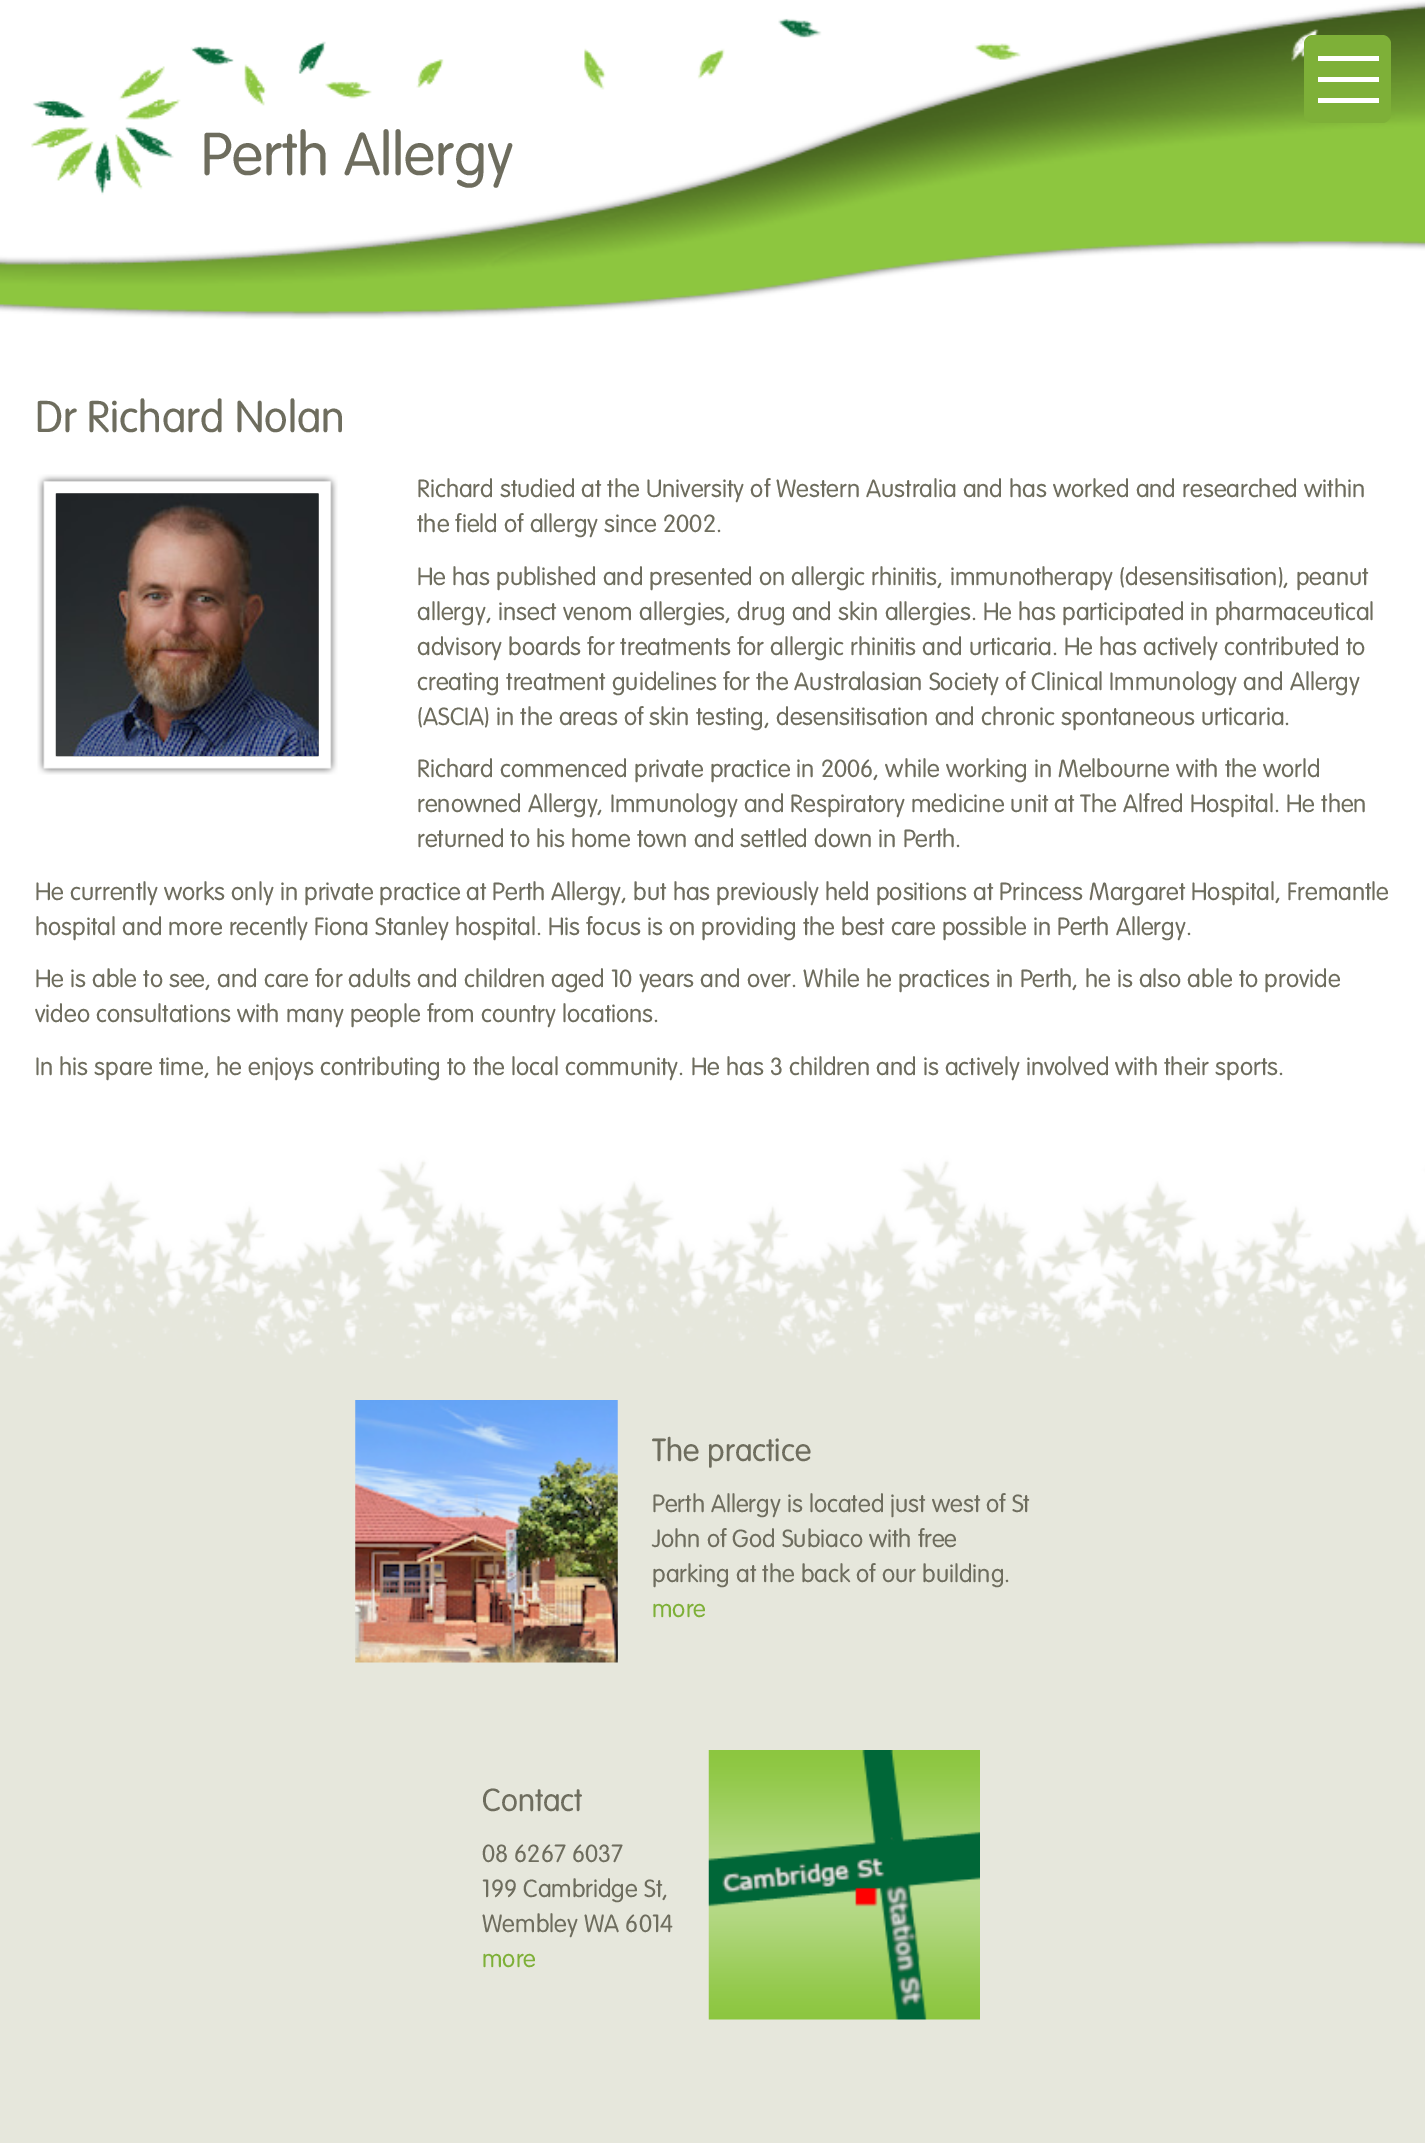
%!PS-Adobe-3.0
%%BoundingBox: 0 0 1425 2143
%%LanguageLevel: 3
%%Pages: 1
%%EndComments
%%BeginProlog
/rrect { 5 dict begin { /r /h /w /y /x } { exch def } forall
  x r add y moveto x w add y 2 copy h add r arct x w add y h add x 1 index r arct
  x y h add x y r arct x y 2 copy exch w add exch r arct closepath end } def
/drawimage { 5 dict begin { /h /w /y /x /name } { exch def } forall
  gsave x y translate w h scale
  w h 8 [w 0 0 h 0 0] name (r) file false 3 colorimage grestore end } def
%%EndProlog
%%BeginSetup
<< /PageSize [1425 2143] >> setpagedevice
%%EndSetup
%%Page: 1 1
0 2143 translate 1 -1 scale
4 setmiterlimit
0.902 0.906 0.863 setrgbcolor
0 0 1425 2143 rectfill
1 setgray
0 319 1425 836 rectfill
(images/1.raw) 0 0 1425 319 drawimage
0.494 0.69 0.22 setrgbcolor
1304 35 87 88 9 rrect fill
1 setgray
1318 56 61 5 rectfill
1318 77 61 5 rectfill
1318 98 61 5 rectfill
(images/2.raw) 37 474 301 301 drawimage
(images/3.raw) 56 493 263 263 drawimage
(images/4.raw) 0 1155 1425 204 drawimage
(images/5.raw) 355 1400 263 263 drawimage
(images/6.raw) 708 1750 272 270 drawimage
/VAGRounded-Light [59.5 0 0 -59.5 0 0] selectfont
0.431 0.427 0.369 setrgbcolor
201 175 moveto (Perth Allergy) show
/VAGRounded-Light [43.75 0 0 -43.75 0 0] selectfont
35 432 moveto (Dr Richard Nolan) show
/VAGRounded-Light [24.5 0 0 -24.5 0 0] selectfont
417 497 moveto (Richard studied at the University of Western Australia and has worked and researched within) show
417 532 moveto (the field of allergy since 2002.) show
417 585 moveto (He has published and presented on allergic rhinitis, immunotherapy \(desensitisation\), peanut) show
417 620 moveto (allergy, insect venom allergies, drug and skin allergies. He has participated in pharmaceutical) show
417 655 moveto (advisory boards for treatments for allergic rhinitis and urticaria. He has actively contributed to) show
417 690 moveto (creating treatment guidelines for the Australasian Society of Clinical Immunology and Allergy) show
417 725 moveto (\(ASCIA\) in the areas of skin testing, desensitisation and chronic spontaneous urticaria.) show
417 777 moveto (Richard commenced private practice in 2006, while working in Melbourne with the world) show
417 812 moveto (renowned Allergy, Immunology and Respiratory medicine unit at The Alfred Hospital. He then) show
417 847 moveto (returned to his home town and settled down in Perth.) show
35 900 moveto (He currently works only in private practice at Perth Allergy, but has previously held positions at Princess Margaret Hospital, Fremantle) show
35 935 moveto (hospital and more recently Fiona Stanley hospital. His focus is on providing the best care possible in Perth Allergy.) show
35 987 moveto (He is able to see, and care for adults and children aged 10 years and over. While he practices in Perth, he is also able to provide) show
35 1022 moveto (video consultations with many people from country locations.) show
35 1075 moveto (In his spare time, he enjoys contributing to the local community. He has 3 children and is actively involved with their sports.) show
/VAGRounded-Light [31.5 0 0 -31.5 0 0] selectfont
652 1461 moveto (The practice) show
/VAGRounded-Light [24.5 0 0 -24.5 0 0] selectfont
652 1512 moveto (Perth Allergy is located just west of St) show
652 1547 moveto (John of God Subiaco with free) show
652 1582 moveto (parking at the back of our building.) show
0.494 0.69 0.22 setrgbcolor
652 1617 moveto (more) show
/VAGRounded-Light [31.5 0 0 -31.5 0 0] selectfont
0.431 0.427 0.369 setrgbcolor
482 1811 moveto (Contact) show
/VAGRounded-Light [24.5 0 0 -24.5 0 0] selectfont
482 1862 moveto (08 6267 6037) show
482 1897 moveto (199 Cambridge St,) show
482 1932 moveto (Wembley WA 6014) show
0.494 0.69 0.22 setrgbcolor
482 1967 moveto (more) show
showpage
%%EOF
